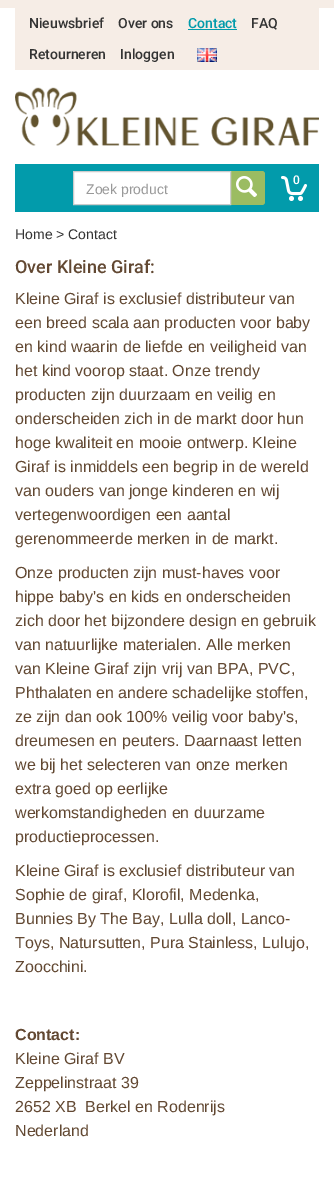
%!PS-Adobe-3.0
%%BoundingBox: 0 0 334 1177
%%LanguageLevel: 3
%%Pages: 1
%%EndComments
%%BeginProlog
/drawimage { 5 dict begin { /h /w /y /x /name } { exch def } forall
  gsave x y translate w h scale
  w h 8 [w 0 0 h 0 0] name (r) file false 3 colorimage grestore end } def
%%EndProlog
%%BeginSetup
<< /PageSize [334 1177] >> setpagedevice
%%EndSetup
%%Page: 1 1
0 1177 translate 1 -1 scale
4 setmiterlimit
1 setgray
0 0 334 1177 rectfill
0.965 0.929 0.902 setrgbcolor
0 0 334 8 rectfill
15 8 304 62 rectfill
0.004 0.608 0.671 setrgbcolor
188 29 49 1 rectfill
(images/1.raw) 197 48 20 14 drawimage
(images/2.raw) 15 87 304 59 drawimage
0.008 0.608 0.671 setrgbcolor
15 164 304 48 rectfill
(images/3.raw) 281 176 26 25 drawimage
0.608 0.737 0.384 setrgbcolor
newpath 230 171 moveto 262 171 lineto 263.5 171 265 172.5 265 174 curveto 265 202 lineto 265 203.5 263.5 205 262 205 curveto 230 205 lineto closepath fill
1 setgray
newpath 73.5 171.5 moveto 230.5 171.5 lineto 230.5 204.5 lineto 73.5 204.5 lineto closepath gsave fill grestore
0.8 setgray
stroke
(images/4.raw) 236 176 21 21 drawimage
/Roboto-Medium [14 0 0 -14 0 0] selectfont
0.2 setgray
29 28 moveto (Nieuwsbrief) show
118 28 moveto (Over ons) show
0.004 0.608 0.671 setrgbcolor
188 28 moveto (Contact) show
0.2 setgray
251 28 moveto (FAQ) show
29 59 moveto (Retourneren) show
120 59 moveto (Inloggen) show
/Roboto-Medium [12 0 0 -12 0 0] selectfont
1 setgray
293 184 moveto (0) show
/LiberationSans-Regular [14 0 0 -14 0 0] selectfont
0.6 setgray
86 194 moveto (Zoek product) show
0.2 setgray
15 239 moveto (Home > Contact) show
/Roboto-Medium [18 0 0 -18 0 0] selectfont
0.384 0.282 0.196 setrgbcolor
15 273 moveto (Over Kleine Giraf:) show
/LiberationSans-Regular [16 0 0 -16 0 0] selectfont
15 304 moveto (Kleine Giraf is exclusief distributeur van) show
15 328 moveto (een breed scala aan producten voor baby) show
15 352 moveto (en kind waarin de liefde en veiligheid van) show
15 376 moveto (het kind voorop staat. Onze trendy) show
15 400 moveto (producten zijn duurzaam en veilig en) show
15 424 moveto (onderscheiden zich in de markt door hun) show
15 448 moveto (hoge kwaliteit en mooie ontwerp. Kleine) show
15 472 moveto (Giraf is inmiddels een begrip in de wereld) show
15 496 moveto (van ouders van jonge kinderen en wij) show
15 520 moveto (vertegenwoordigen een aantal) show
15 544 moveto (gerenommeerde merken in de markt.) show
15 578 moveto (Onze producten zijn must-haves voor) show
15 602 moveto (hippe baby's en kids en onderscheiden) show
15 626 moveto (zich door het bijzondere design en gebruik) show
15 650 moveto (van natuurlijke materialen. Alle merken) show
15 674 moveto (van Kleine Giraf zijn vrij van BPA, PVC,) show
15 698 moveto (Phthalaten en andere schadelijke stoffen,) show
15 722 moveto (ze zijn dan ook 100% veilig voor baby's,) show
15 746 moveto (dreumesen en peuters. Daarnaast letten) show
15 770 moveto (we bij het selecteren van onze merken) show
15 794 moveto (extra goed op eerlijke) show
15 818 moveto (werkomstandigheden en duurzame) show
15 842 moveto (productieprocessen.) show
15 876 moveto (Kleine Giraf is exclusief distributeur van) show
15 900 moveto (Sophie de giraf, Klorofil, Medenka,) show
15 924 moveto (Bunnies By The Bay, Lulla doll, Lanco-) show
15 948 moveto (Toys, Natursutten, Pura Stainless, Lulujo,) show
15 972 moveto (Zoocchini.) show
/LiberationSans-Bold [16 0 0 -16 0 0] selectfont
15 1040 moveto (Contact:) show
/LiberationSans-Regular [16 0 0 -16 0 0] selectfont
15 1064 moveto (Kleine Giraf BV) show
15 1088 moveto (Zeppelinstraat 39) show
15 1112 moveto (2652 XB  Berkel en Rodenrijs) show
15 1136 moveto (Nederland) show
showpage
%%EOF
